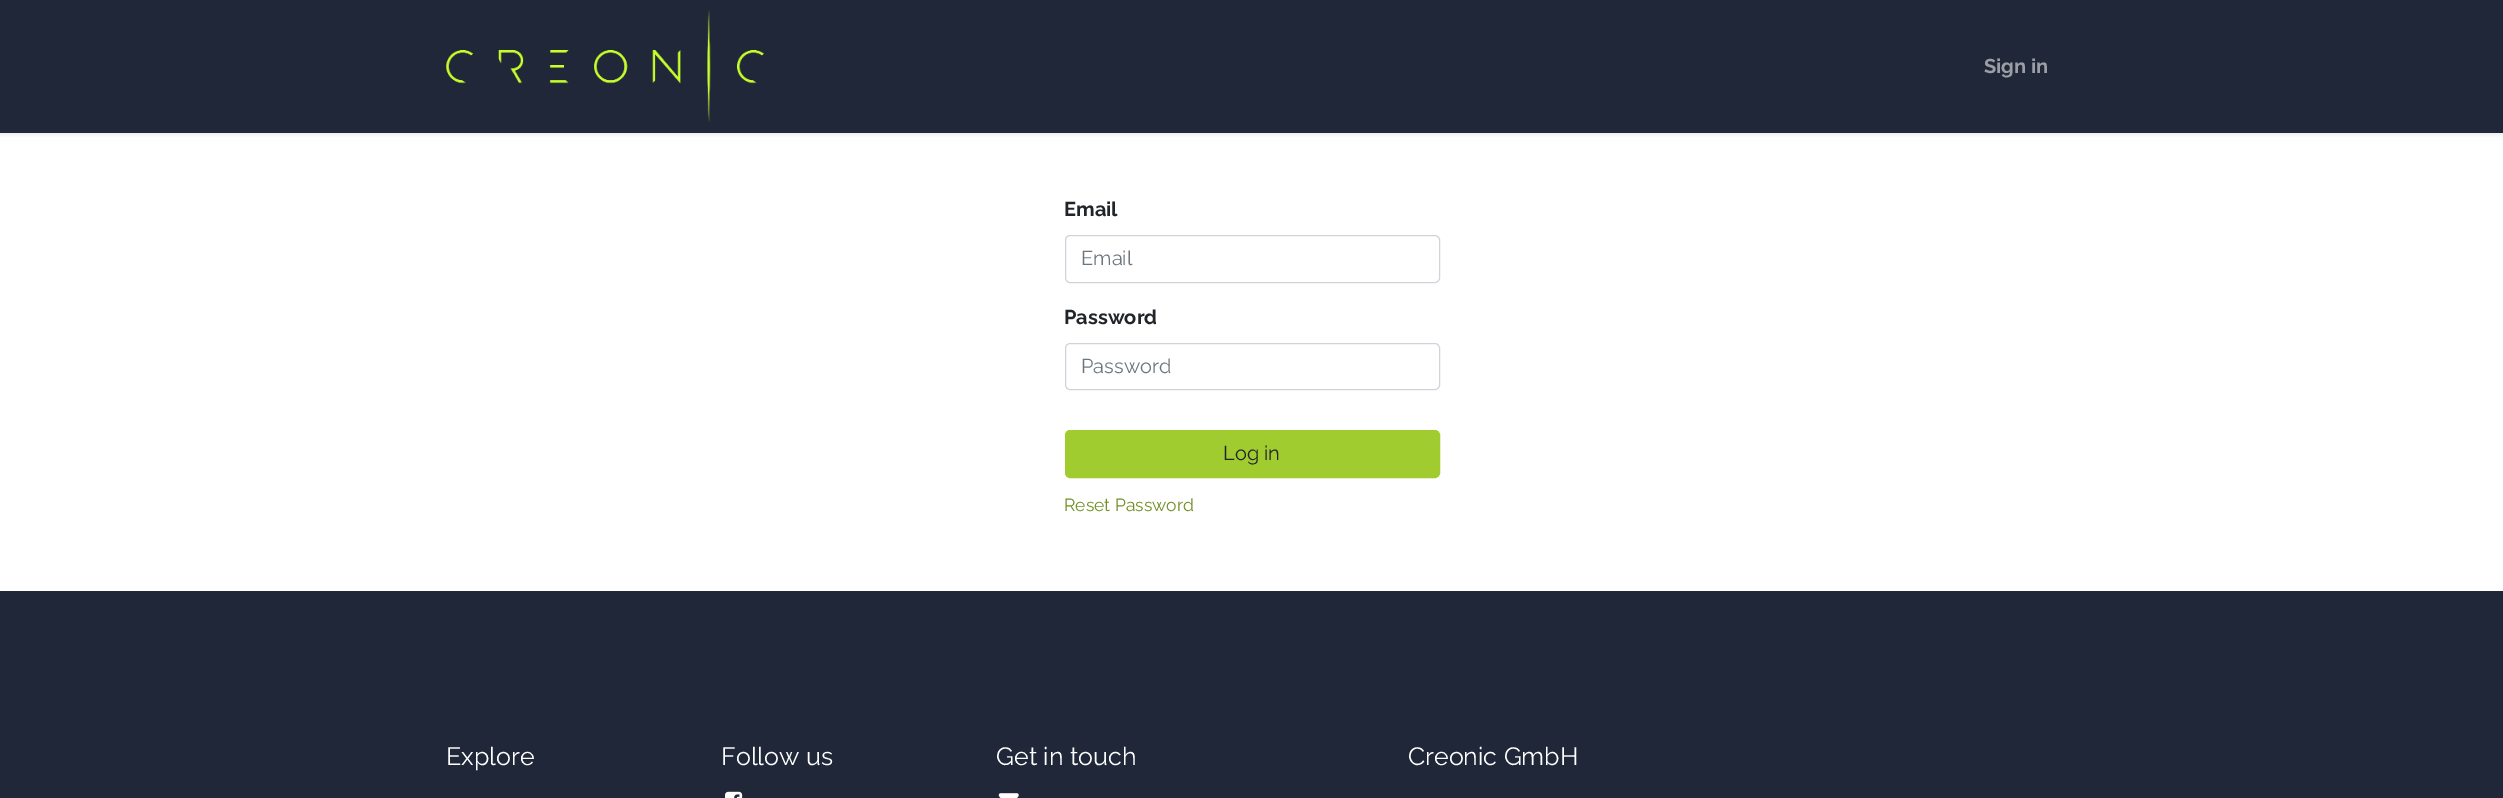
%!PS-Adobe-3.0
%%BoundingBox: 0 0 2503 798
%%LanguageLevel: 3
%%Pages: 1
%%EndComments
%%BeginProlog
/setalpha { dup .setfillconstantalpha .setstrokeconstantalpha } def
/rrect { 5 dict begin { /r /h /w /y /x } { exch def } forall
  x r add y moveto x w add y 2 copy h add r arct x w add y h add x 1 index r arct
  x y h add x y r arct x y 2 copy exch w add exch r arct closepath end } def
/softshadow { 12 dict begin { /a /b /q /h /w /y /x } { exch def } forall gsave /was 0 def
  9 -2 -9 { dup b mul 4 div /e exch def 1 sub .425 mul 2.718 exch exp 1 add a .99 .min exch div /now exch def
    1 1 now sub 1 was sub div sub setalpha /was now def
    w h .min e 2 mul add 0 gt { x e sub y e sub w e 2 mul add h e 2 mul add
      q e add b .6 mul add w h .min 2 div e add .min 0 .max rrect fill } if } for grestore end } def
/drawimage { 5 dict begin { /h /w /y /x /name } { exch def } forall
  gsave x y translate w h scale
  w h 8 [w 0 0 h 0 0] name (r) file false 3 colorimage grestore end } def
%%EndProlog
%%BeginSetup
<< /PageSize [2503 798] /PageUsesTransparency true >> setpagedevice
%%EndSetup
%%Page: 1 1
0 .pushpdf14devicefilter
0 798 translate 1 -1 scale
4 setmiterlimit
1 setgray
0 0 2503 798 rectfill
0 setgray
0 3 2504 132 0 2.5 0.07 softshadow
0.125 0.153 0.22 setrgbcolor
0 0 2503 133 rectfill
(images/1.raw) 446 10 318 112 drawimage
0.808 0.831 0.855 setrgbcolor
1065.5 235.5 374 47 4.5 rrect stroke
1065.5 343.5 374 46 4.5 rrect stroke
0.631 0.8 0.184 setrgbcolor
1065.5 430.5 374 47 4.5 rrect gsave fill grestore
stroke
0.125 0.153 0.22 setrgbcolor
0 591 2503 207 rectfill
(images/2.raw) 725 791 18 7 drawimage
(images/3.raw) 998 793 21 5 drawimage
/Raleway-Bold [20 0 0 -20 0 0] selectfont
0.608 0.62 0.647 setrgbcolor
1984 73 moveto (Sign in) show
0.129 0.145 0.161 setrgbcolor
1064 216 moveto (Email) show
/Raleway-Regular [20 0 0 -20 0 0] selectfont
0.424 0.459 0.49 setrgbcolor
1081 265 moveto (Email) show
/Raleway-Bold [20 0 0 -20 0 0] selectfont
0.129 0.145 0.161 setrgbcolor
1064 324 moveto (Password) show
/Raleway-Regular [20 0 0 -20 0 0] selectfont
0.424 0.459 0.49 setrgbcolor
1081 373 moveto (Password) show
0.129 0.145 0.161 setrgbcolor
1223 460 moveto (Log in) show
/Raleway-Regular [17.5 0 0 -17.5 0 0] selectfont
0.439 0.557 0.129 setrgbcolor
1064 511 moveto (Reset Password) show
/Raleway-Regular [25 0 0 -25 0 0] selectfont
1 setgray
446 765 moveto (Explore) show
721 765 moveto (Follow us) show
996 765 moveto (Get in touch) show
1408 765 moveto (Creonic GmbH) show
.poppdf14devicefilter showpage
%%EOF
